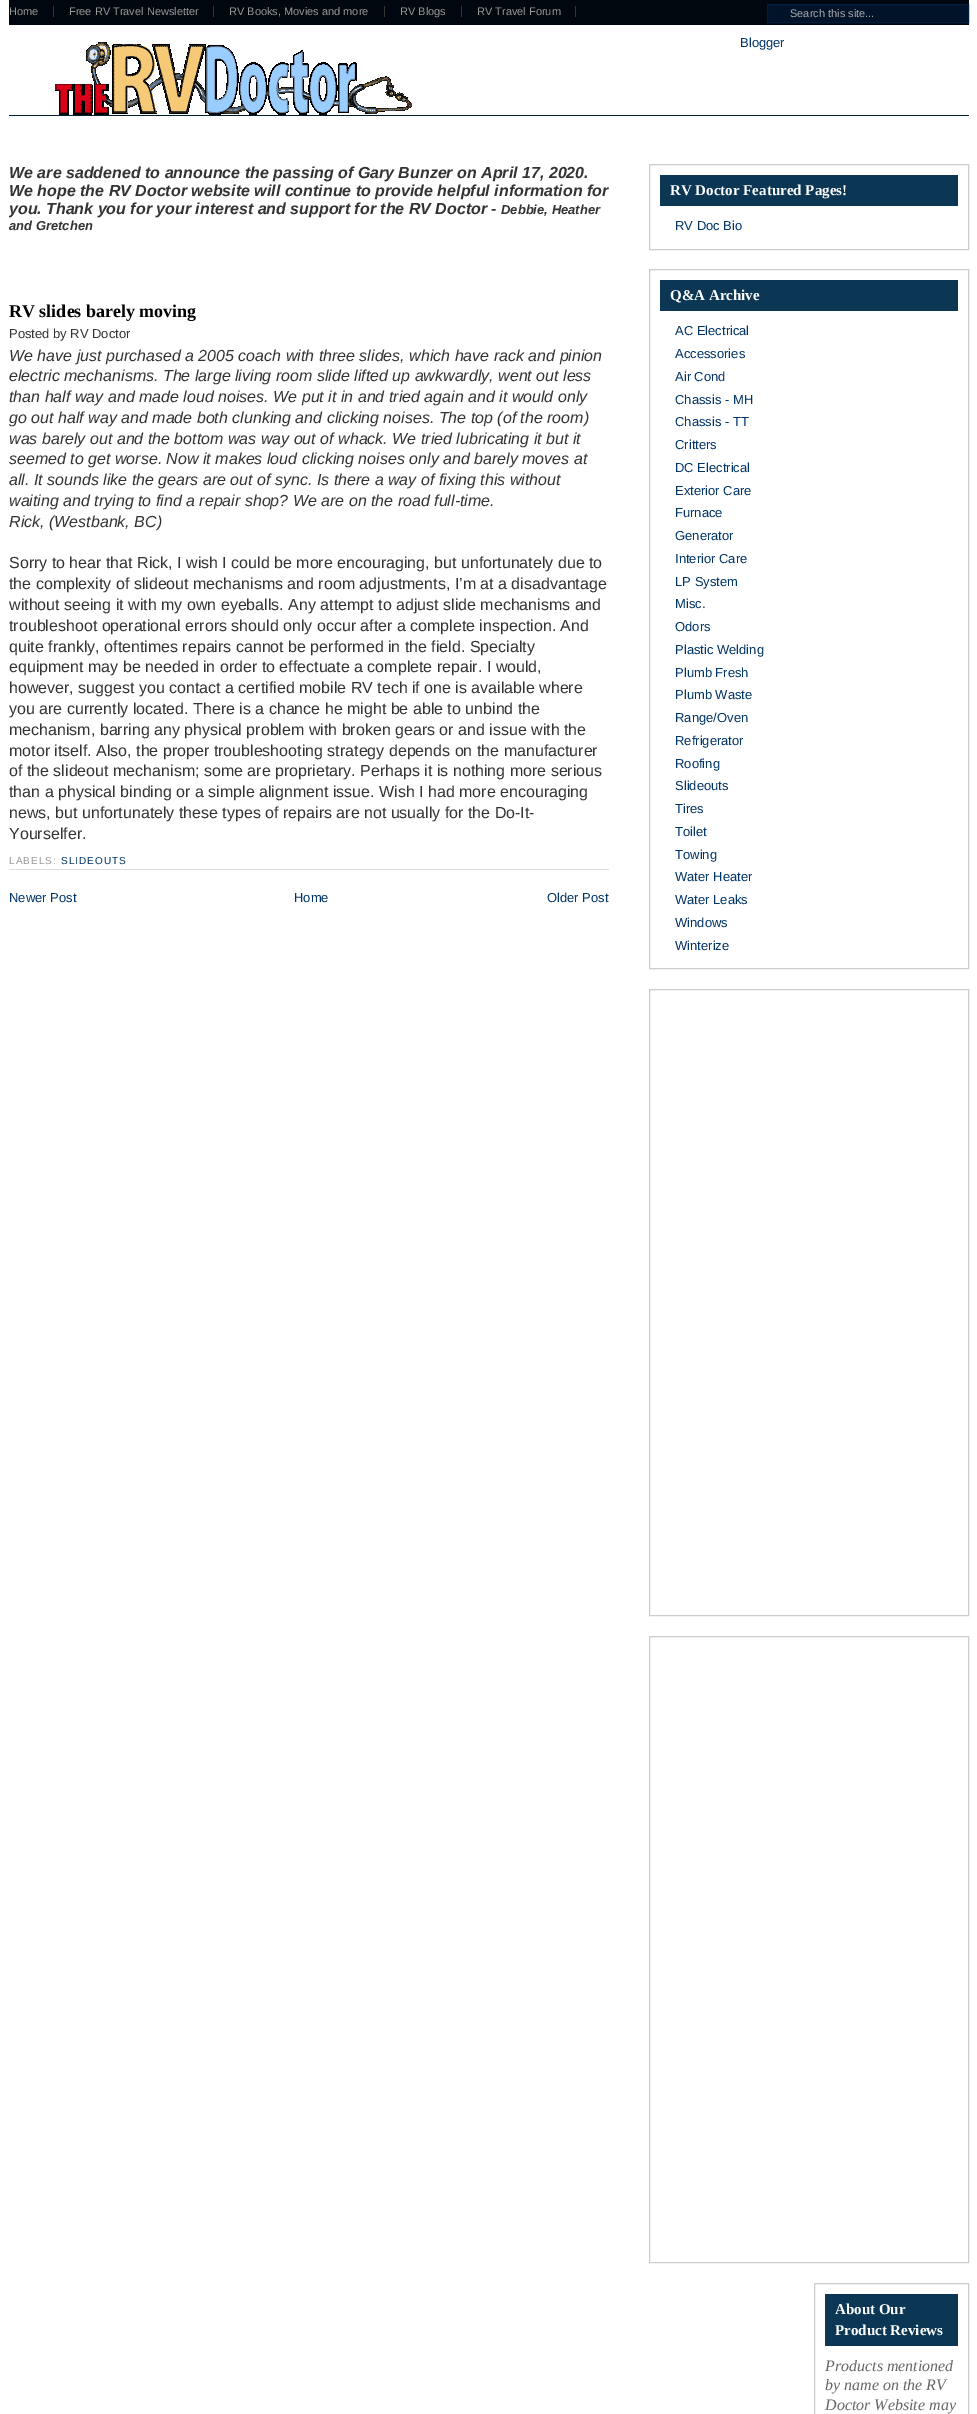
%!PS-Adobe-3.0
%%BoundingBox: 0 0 977 2414
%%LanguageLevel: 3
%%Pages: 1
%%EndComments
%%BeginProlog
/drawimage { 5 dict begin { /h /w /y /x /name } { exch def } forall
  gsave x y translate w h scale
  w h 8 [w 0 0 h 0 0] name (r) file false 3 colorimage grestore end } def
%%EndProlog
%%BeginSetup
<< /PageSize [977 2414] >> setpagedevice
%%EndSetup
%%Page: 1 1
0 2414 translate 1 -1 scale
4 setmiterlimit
1 setgray
0 0 977 2414 rectfill
0 0.027 0.059 setrgbcolor
9 0 960 25 rectfill
0.208 setgray
53 6 1 11 rectfill
213 6 1 11 rectfill
384 6 1 11 rectfill
461 6 1 11 rectfill
575 6 1 11 rectfill
0 0.075 0.157 setrgbcolor
newpath 767.5 4.5 moveto 968.5 4.5 lineto 968.5 22.5 lineto 767.5 22.5 lineto closepath gsave fill grestore
0.004 0.118 0.247 setrgbcolor
stroke
0.008 0.122 0.196 setrgbcolor
9 115 960 1 rectfill
(images/1.raw) 55 42 357 73 drawimage
0.867 setgray
9 869 600 1 rectfill
0.8 setgray
649.5 164.5 319 85 rectstroke
0.043 0.216 0.329 setrgbcolor
660 175 298 31 rectfill
0.8 setgray
649.5 269.5 319 699 rectstroke
0.043 0.216 0.329 setrgbcolor
660 280 298 31 rectfill
0.8 setgray
649.5 989.5 319 626 rectstroke
649.5 1636.5 319 626 rectstroke
814.5 2283.5 154 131 rectstroke
0.043 0.216 0.329 setrgbcolor
825 2294 133 52 rectfill
/LiberationSans-Regular [11 0 0 -11 0 0] selectfont
0.6 setgray
9 15 moveto (Home) show
69 15 moveto (Free RV Travel Newsletter) show
229 15 moveto (RV Books, Movies and more) show
400 15 moveto (RV Blogs) show
477 15 moveto (RV Travel Forum) show
0.667 setgray
790 17 moveto (Search this site...) show
/LiberationSans-Regular [13 0 0 -13 0 0] selectfont
0 0.2 0.4 setrgbcolor
740 47 moveto (Blogger) show
/LiberationSans-BoldItalic [16 0 0 -16 0 0] selectfont
0.2 setgray
9 178 moveto (We are saddened to announce the passing of Gary Bunzer on April 17, 2020.) show
9 196 moveto (We hope the RV Doctor website will continue to provide helpful information for) show
gsave
9 164 600 754 rectclip
9 214 moveto (you.) show
grestore
46 214 moveto (Thank you for your interest and support for the RV Doctor -) show
/LiberationSans-BoldItalic [13 0 0 -13 0 0] selectfont
501 214 moveto (Debbie, Heather) show
gsave
9 164 600 754 rectclip
9 230 moveto (and Gretchen) show
grestore
/LiberationSerif-Bold [18 0 0 -18 0 0] selectfont
0 setgray
9 317 moveto (RV slides barely moving) show
/LiberationSans-Regular [13 0 0 -13 0 0] selectfont
0.2 setgray
9 338 moveto (Posted by RV Doctor) show
/LiberationSans-Italic [16 0 0 -16 0 0] selectfont
9 361 moveto (We have just purchased a 2005 coach with three slides, which have rack and pinion) show
9 381 moveto (electric mechanisms. The large living room slide lifted up awkwardly, went out less) show
9 402 moveto (than half way and made loud noises. We put it in and tried again and it would only) show
9 423 moveto (go out half way and made both clunking and clicking noises. The top \(of the room\)) show
9 444 moveto (was barely out and the bottom was way out of whack. We tried lubricating it but it) show
9 464 moveto (seemed to get worse. Now it makes loud clicking noises only and barely moves at) show
9 485 moveto (all. It sounds like the gears are out of sync. Is there a way of fixing this without) show
9 506 moveto (waiting and trying to find a repair shop? We are on the road full-time.) show
9 527 moveto (Rick, \(Westbank, BC\)) show
/LiberationSans-Regular [16 0 0 -16 0 0] selectfont
9 568 moveto (Sorry to hear that Rick, I wish I could be more encouraging, but unfortunately due to) show
9 589 moveto (the complexity of slideout mechanisms and room adjustments, I’m at a disadvantage) show
9 610 moveto (without seeing it with my own eyeballs. Any attempt to adjust slide mechanisms and) show
9 631 moveto (troubleshoot operational errors should only occur after a complete inspection. And) show
9 652 moveto (quite frankly, oftentimes repairs cannot be performed in the field. Specialty) show
9 672 moveto (equipment may be needed in order to effectuate a complete repair. I would,) show
9 693 moveto (however, suggest you contact a certified mobile RV tech if one is available where) show
9 714 moveto (you are currently located. There is a chance he might be able to unbind the) show
9 735 moveto (mechanism, barring any physical problem with broken gears or and issue with the) show
9 756 moveto (motor itself. Also, the proper troubleshooting strategy depends on the manufacturer) show
9 776 moveto (of the slideout mechanism; some are proprietary. Perhaps it is nothing more serious) show
9 797 moveto (than a physical binding or a simple alignment issue. Wish I had more encouraging) show
9 818 moveto (news, but unfortunately these types of repairs are not usually for the Do-It-) show
9 839 moveto (Yourselfer.) show
/LiberationSans-Regular [10 0 0 -10 0 0] selectfont
0.6 setgray
9 864 moveto 1 0 (LABELS:) ashow
0 0.2 0.4 setrgbcolor
61 864 moveto 1 0 (SLIDEOUTS) ashow
/LiberationSans-Regular [13 0 0 -13 0 0] selectfont
9 902 moveto (Newer Post) show
294 902 moveto (Home) show
547 902 moveto (Older Post) show
/LiberationSerif-Bold [15 0 0 -15 0 0] selectfont
1 setgray
670 195 moveto (RV Doctor Featured Pages!) show
/LiberationSans-Regular [13 0 0 -13 0 0] selectfont
0 0.2 0.4 setrgbcolor
675 230 moveto (RV Doc Bio) show
/LiberationSerif-Bold [15 0 0 -15 0 0] selectfont
1 setgray
670 300 moveto (Q&A Archive) show
/LiberationSans-Regular [13 0 0 -13 0 0] selectfont
0 0.2 0.4 setrgbcolor
675 335 moveto (AC Electrical) show
675 358 moveto (Accessories) show
675 381 moveto (Air Cond) show
675 404 moveto (Chassis - MH) show
675 426 moveto (Chassis - TT) show
675 449 moveto (Critters) show
675 472 moveto (DC Electrical) show
675 495 moveto (Exterior Care) show
675 517 moveto (Furnace) show
675 540 moveto (Generator) show
675 563 moveto (Interior Care) show
675 586 moveto (LP System) show
675 608 moveto (Misc.) show
675 631 moveto (Odors) show
675 654 moveto (Plastic Welding) show
675 677 moveto (Plumb Fresh) show
675 699 moveto (Plumb Waste) show
675 722 moveto (Range/Oven) show
675 745 moveto (Refrigerator) show
675 768 moveto (Roofing) show
675 790 moveto (Slideouts) show
675 813 moveto (Tires) show
675 836 moveto (Toilet) show
675 859 moveto (Towing) show
675 881 moveto (Water Heater) show
675 904 moveto (Water Leaks) show
675 927 moveto (Windows) show
675 950 moveto (Winterize) show
/LiberationSerif-Bold [15 0 0 -15 0 0] selectfont
1 setgray
835 2314 moveto (About Our) show
835 2335 moveto (Product Reviews) show
/LiberationSerif-Italic [16 0 0 -16 0 0] selectfont
0.4 setgray
825 2371 moveto (Products mentioned) show
825 2390 moveto (by name on the RV) show
825 2410 moveto (Doctor Website may) show
showpage
%%EOF
